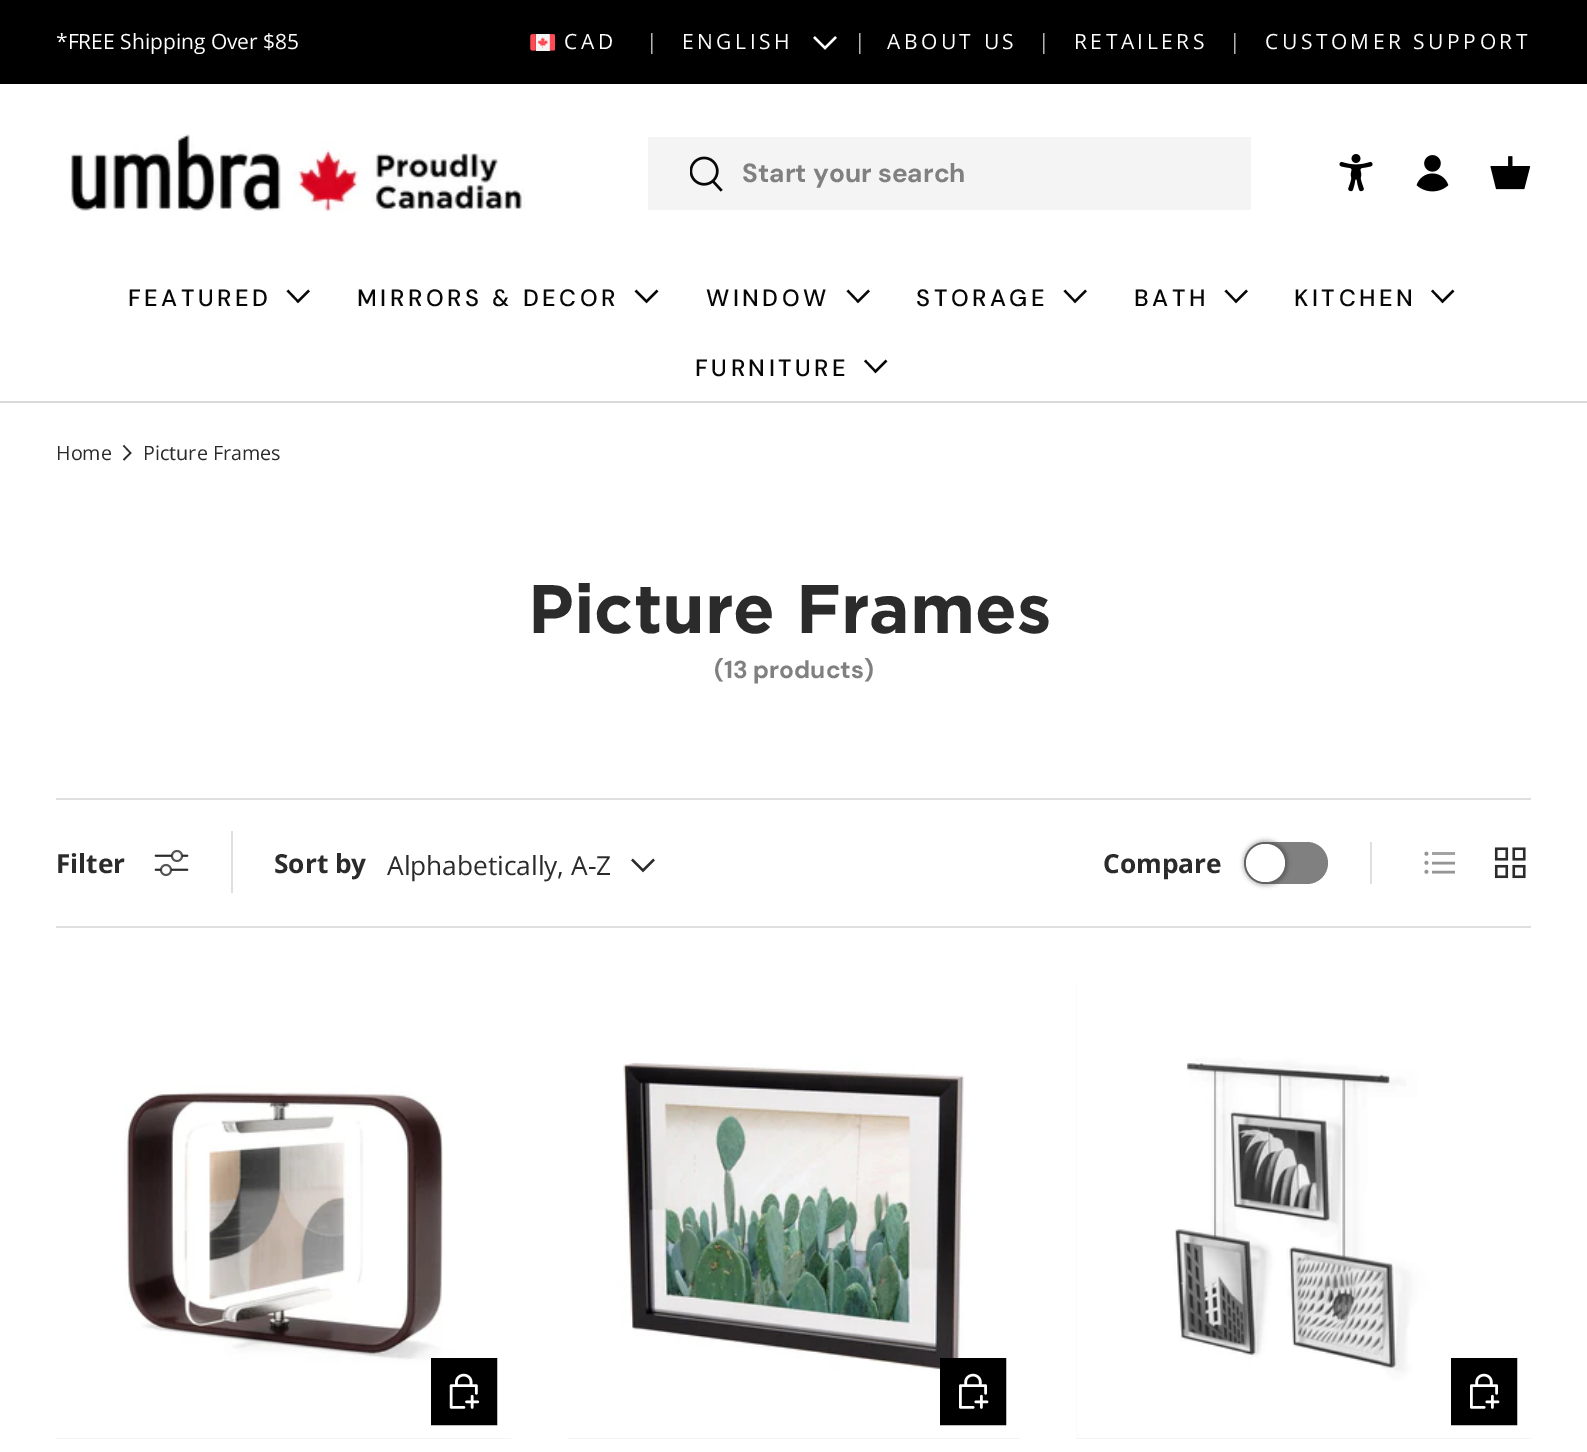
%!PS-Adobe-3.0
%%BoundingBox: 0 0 1587 1452
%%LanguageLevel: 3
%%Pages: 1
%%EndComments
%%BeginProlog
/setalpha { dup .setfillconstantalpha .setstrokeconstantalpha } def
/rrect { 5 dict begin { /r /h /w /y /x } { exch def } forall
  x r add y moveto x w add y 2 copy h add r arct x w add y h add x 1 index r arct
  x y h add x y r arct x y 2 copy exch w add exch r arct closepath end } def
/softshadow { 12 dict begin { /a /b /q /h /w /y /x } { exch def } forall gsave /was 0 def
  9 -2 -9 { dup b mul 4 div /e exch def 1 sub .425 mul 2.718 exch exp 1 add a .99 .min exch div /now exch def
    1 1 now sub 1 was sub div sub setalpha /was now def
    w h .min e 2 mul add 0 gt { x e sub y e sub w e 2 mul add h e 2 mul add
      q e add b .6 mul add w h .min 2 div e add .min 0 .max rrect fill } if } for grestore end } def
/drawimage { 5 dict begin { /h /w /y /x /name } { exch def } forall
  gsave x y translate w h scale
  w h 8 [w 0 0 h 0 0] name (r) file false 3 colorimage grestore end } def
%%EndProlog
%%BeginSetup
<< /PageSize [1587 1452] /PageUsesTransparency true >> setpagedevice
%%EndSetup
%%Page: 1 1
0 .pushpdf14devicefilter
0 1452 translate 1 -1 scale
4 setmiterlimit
1 setgray
0 0 1587 1452 rectfill
0 setgray
0 0 1587 84 rectfill
(images/1.raw) 530 34 25 17 drawimage
1 setgray
2.2 setlinewidth
newpath 836 37 moveto 825 48 lineto 814 37 lineto stroke
0.855 setgray
0 401 1587 2 rectfill
(images/2.raw) 71 134 454 78 drawimage
0.957 setgray
648 137 603 73 rectfill
(images/3.raw) 690 156 33 36 drawimage
(images/4.raw) 1339 154 34 38 drawimage
(images/5.raw) 1416 155 33 37 drawimage
(images/6.raw) 1490 156 41 34 drawimage
0.027 setgray
newpath 309 290.5 moveto 298 301.5 lineto 287.5 290.5 lineto stroke
newpath 657.5 290.5 moveto 646.5 301.5 lineto 635.5 290.5 lineto stroke
newpath 869 290.5 moveto 858 301.5 lineto 847.5 290.5 lineto stroke
newpath 1086 290.5 moveto 1075 301.5 lineto 1064.5 290.5 lineto stroke
newpath 1247 290.5 moveto 1236 301.5 lineto 1225.5 290.5 lineto stroke
newpath 1453.5 290.5 moveto 1442.5 301.5 lineto 1432 290.5 lineto stroke
newpath 886.5 360.5 moveto 875.5 371.5 lineto 865 360.5 lineto stroke
0.165 0.169 0.165 setrgbcolor
1.5 setlinewidth
newpath 123.5 445.5 moveto 130.5 453 lineto 123.5 460 lineto stroke
0.875 setgray
56 798 1475 2 rectfill
56 926 1475 2 rectfill
(images/7.raw) 154 849 35 28 drawimage
231 831 2 62 rectfill
0.165 0.169 0.165 setrgbcolor
2.2 setlinewidth
newpath 654 859.5 moveto 643 870.5 lineto 632 859.5 lineto stroke
0.498 0.502 0.498 setrgbcolor
1244 842 84 42 21 rrect fill
0 setgray
1243 840 45 46 22.5 2 0.25 softshadow
1 setgray
1246 844 39 38 19 rrect fill
0.875 setgray
1370 842 2 42 rectfill
0.584 setgray
newpath 1426.4 853.7 1.9 0 360 arc closepath fill
0.639 setgray
1432 852 23 3 rectfill
0.584 setgray
newpath 1426.4 862.8 1.9 0 360 arc closepath fill
2.6 setlinewidth
newpath 1432 863 moveto 1455 863 lineto stroke
newpath 1426.4 871.8 1.9 0 360 arc closepath fill
newpath 1432 872 moveto 1455 872 lineto stroke
(images/8.raw) 1494 847 32 32 drawimage
0.957 setgray
56 1438 455 1 rectfill
(images/9.raw) 56 984 455 454 drawimage
gsave newpath 435 1362 moveto 493 1362 lineto 493 1421 lineto 435 1421 lineto closepath clip newpath
<< /ShadingType 2 /ColorSpace /DeviceRGB /Coords [313 1369 495 1414] /Extend [true true] /Function << /FunctionType 3 /Domain [0 1] /Functions [<< /FunctionType 2 /Domain [0 1] /C0 [0.18 0.18 0.18] /C1 [0.18 0.18 0.18] /N 1 >> << /FunctionType 2 /Domain [0 1] /C0 [0 0 0] /C1 [0 0 0] /N 1 >>] /Bounds [0.6] /Encode [0 1 0 1] >> >> shfill grestore
0 setgray
4 setlinewidth
433 1360 62 63 rectstroke
(images/10.raw) 449 1373 31 36 drawimage
0.957 setgray
567 1438 453 1 rectfill
(images/11.raw) 567 984 453 454 drawimage
gsave newpath 944 1362 moveto 1002 1362 lineto 1002 1421 lineto 944 1421 lineto closepath clip newpath
<< /ShadingType 2 /ColorSpace /DeviceRGB /Coords [822 1369 1005 1414] /Extend [true true] /Function << /FunctionType 3 /Domain [0 1] /Functions [<< /FunctionType 2 /Domain [0 1] /C0 [0.18 0.18 0.18] /C1 [0.18 0.18 0.18] /N 1 >> << /FunctionType 2 /Domain [0 1] /C0 [0 0 0] /C1 [0 0 0] /N 1 >>] /Bounds [0.6] /Encode [0 1 0 1] >> >> shfill grestore
0 setgray
942 1360 62 63 rectstroke
(images/12.raw) 959 1373 30 36 drawimage
0.957 setgray
1076 984 455 455 rectfill
(images/13.raw) 1076 984 455 454 drawimage
gsave newpath 1455 1362 moveto 1513 1362 lineto 1513 1421 lineto 1455 1421 lineto closepath clip newpath
<< /ShadingType 2 /ColorSpace /DeviceRGB /Coords [1333 1369 1516 1414] /Extend [true true] /Function << /FunctionType 3 /Domain [0 1] /Functions [<< /FunctionType 2 /Domain [0 1] /C0 [0.18 0.18 0.18] /C1 [0.18 0.18 0.18] /N 1 >> << /FunctionType 2 /Domain [0 1] /C0 [0 0 0] /C1 [0 0 0] /N 1 >>] /Bounds [0.6] /Encode [0 1 0 1] >> >> shfill grestore
0 setgray
1453 1360 62 63 rectstroke
(images/12.raw) 1470 1373 30 36 drawimage
/OpenSans-Regular [21 0 0 -21 0 0] selectfont
1 setgray
56 49 moveto (*FREE Shipping Over $85) show
564 49 moveto 3.5 0 (CAD) ashow
0.702 setgray
646 49 moveto 3.5 0 (|) ashow
1 setgray
682 49 moveto 3.5 0 (ENGLISH) ashow
0.702 setgray
854 49 moveto (|) show
1 setgray
887 49 moveto 3.5 0 (ABOUT US) ashow
0.702 setgray
1038 49 moveto 3.5 0 (|) ashow
1 setgray
1074 49 moveto 3.5 0 (RETAILERS) ashow
0.702 setgray
1229 49 moveto 3.5 0 (|) ashow
1 setgray
1265 49 moveto 3.5 0 (CUSTOMER SUPPORT) ashow
/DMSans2-Bold [26.25 0 0 -26.25 0 0] selectfont
0.498 0.502 0.498 setrgbcolor
742 182 moveto (Start your search) show
/DMSans-Medium [23.6 0 0 -23.6 0 0] selectfont
0.027 setgray
128 306 moveto 3.5 0 (FEATURED) ashow
357 306 moveto 3.5 0 (MIRRORS & DECOR) ashow
706 306 moveto 3.5 0 (WINDOW) ashow
916 306 moveto 3.5 0 (STORAGE) ashow
1134 306 moveto 3.5 0 (BATH) ashow
1294 306 moveto 3.5 0 (KITCHEN) ashow
695 376 moveto 3.5 0 (FURNITURE) ashow
/OpenSans-Regular [19.75 0 0 -19.75 0 0] selectfont
0.165 0.169 0.165 setrgbcolor
56 460 moveto (Home) show
143 460 moveto (Picture Frames) show
/Gotham-Bold [68.5 0 0 -68.5 0 0] selectfont
528 633 moveto (Picture Frames) show
/DMSans-Bold [24.5 0 0 -24.5 0 0] selectfont
0.498 0.502 0.498 setrgbcolor
714 678 moveto (\(13 products\)) show
/OpenSans-Bold [26.25 0 0 -26.25 0 0] selectfont
0.165 0.169 0.165 setrgbcolor
56 873 moveto (Filter) show
274 873 moveto (Sort by) show
/OpenSans-Regular [26.25 0 0 -26.25 0 0] selectfont
387 875 moveto (Alphabetically, A-Z) show
/OpenSans-Bold [26.25 0 0 -26.25 0 0] selectfont
1103 873 moveto (Compare) show
.poppdf14devicefilter showpage
%%EOF
